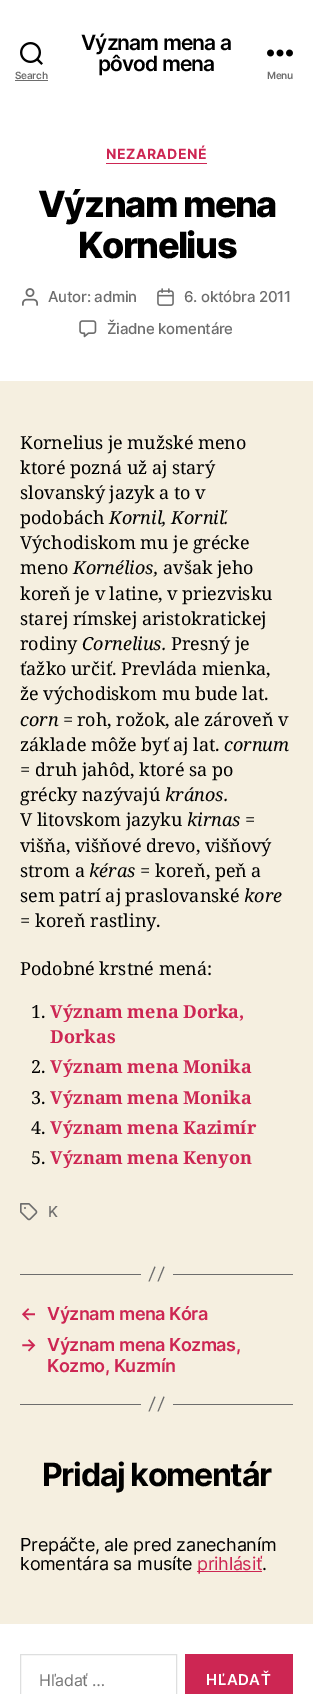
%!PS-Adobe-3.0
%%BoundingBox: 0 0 313 1694
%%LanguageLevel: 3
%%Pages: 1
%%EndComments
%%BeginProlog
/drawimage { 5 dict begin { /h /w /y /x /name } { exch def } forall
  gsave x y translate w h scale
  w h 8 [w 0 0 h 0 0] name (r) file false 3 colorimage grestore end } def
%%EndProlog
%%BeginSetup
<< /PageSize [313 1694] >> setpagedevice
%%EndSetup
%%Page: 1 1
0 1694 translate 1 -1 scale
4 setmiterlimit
0.961 0.937 0.878 setrgbcolor
0 0 313 1694 rectfill
1 setgray
0 0 313 381 rectfill
(images/1.raw) 20 42 23 23 drawimage
0.427 setgray
15 80 33 1 rectfill
(images/2.raw) 267 49 26 8 drawimage
0.804 0.149 0.325 setrgbcolor
106 163 101 1 rectfill
(images/3.raw) 22 288 16 18 drawimage
(images/4.raw) 157 288 17 18 drawimage
(images/5.raw) 79 320 18 18 drawimage
(images/6.raw) 20 1203 18 18 drawimage
0.427 setgray
173 1274 120 1 rectfill
20 1274 121 1 rectfill
newpath 154.5 1266.5 moveto 155.5 1267 lineto 149.5 1281.5 lineto 148.5 1281.5 lineto closepath 163.5 1266.5 moveto 164.5 1267 lineto 158.5 1281.5 lineto 157.5 1281.5 lineto closepath fill
173 1404 120 1 rectfill
20 1404 121 1 rectfill
newpath 154.5 1396.5 moveto 155.5 1397 lineto 149.5 1411.5 lineto 148.5 1411.5 lineto closepath 163.5 1396.5 moveto 164.5 1397 lineto 158.5 1411.5 lineto 157.5 1411.5 lineto closepath fill
0.804 0.149 0.325 setrgbcolor
197 1571 65 1 rectfill
1 setgray
0 1624 313 70 rectfill
0.871 0.875 0.875 setrgbcolor
20.5 1654.5 156 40 rectstroke
0.804 0.149 0.325 setrgbcolor
185 1654 108 40 rectfill
/Inter-SemiBold [10 0 0 -10 0 0] selectfont
0.427 setgray
15 79 moveto -0.25 0 (Search) ashow
/Inter-SemiBold [21 0 0 -21 0 0] selectfont
0 setgray
81 50 moveto -0.9 0 (Význam mena a) ashow
98 71 moveto -0.9 0 (pôvod mena) ashow
/Inter-SemiBold [10 0 0 -10 0 0] selectfont
0.427 setgray
267 79 moveto -0.25 0 (Menu) ashow
/Inter-Bold [14 0 0 -14 0 0] selectfont
0.804 0.149 0.325 setrgbcolor
106 159 moveto 0.5 0 (NEZARADENÉ) ashow
/Inter-ExtraBold [36 0 0 -36 0 0] selectfont
0 setgray
38 217 moveto -1.5 0 (Význam mena) ashow
78 258 moveto -1.5 0 (Kornelius) ashow
/Inter-Medium [15 0 0 -15 0 0] selectfont
0.427 setgray
48 302 moveto -0.25 0 (Autor: admin) ashow
184 302 moveto -0.25 0 (6. októbra 2011) ashow
107 334 moveto -0.25 0 (Žiadne komentáre) ashow
/NotoSerif-Regular [18 0 0 -18 0 0] selectfont
0 setgray
20 449 moveto -0.25 0 32 (Kornelius je mužské meno) widthshow
20 474 moveto -0.25 0 32 (ktoré pozná už aj starý) widthshow
20 499 moveto -0.25 0 32 (slovanský jazyk a to v) widthshow
20 524 moveto (podobách) show
/NotoSerif-Italic [18 0 0 -18 0 0] selectfont
109 524 moveto (Kornil, Korniľ.) show
/NotoSerif-Regular [18 0 0 -18 0 0] selectfont
20 549 moveto -0.25 0 32 (Východiskom mu je grécke) widthshow
20 574 moveto (meno) show
/NotoSerif-Italic [18 0 0 -18 0 0] selectfont
73 574 moveto (Kornélios,) show
/NotoSerif-Regular [18 0 0 -18 0 0] selectfont
163 574 moveto (avšak jeho) show
20 600 moveto -0.25 0 32 (koreň je v latine, v priezvisku) widthshow
20 625 moveto -0.25 0 32 (starej rímskej aristokratickej) widthshow
20 650 moveto (rodiny) show
/NotoSerif-Italic [18 0 0 -18 0 0] selectfont
82 650 moveto (Cornelius.) show
/NotoSerif-Regular [18 0 0 -18 0 0] selectfont
171 650 moveto (Presný je) show
20 675 moveto -0.25 0 32 (ťažko určiť. Prevláda mienka,) widthshow
20 700 moveto -0.25 0 32 (že východiskom mu bude lat.) widthshow
/NotoSerif-Italic [18 0 0 -18 0 0] selectfont
20 726 moveto -0.25 0 32 (corn =) widthshow
/NotoSerif-Regular [18 0 0 -18 0 0] selectfont
77 726 moveto -0.25 0 32 (roh, rožok, ale zároveň v) widthshow
20 751 moveto -0.25 0 32 (základe môže byť aj lat.) widthshow
/NotoSerif-Italic [18 0 0 -18 0 0] selectfont
224 751 moveto (cornum) show
20 776 moveto (=) show
/NotoSerif-Regular [18 0 0 -18 0 0] selectfont
35 776 moveto -0.25 0 32 (druh jahôd, ktoré sa po) widthshow
20 801 moveto -0.25 0 32 (grécky nazývajú) widthshow
/NotoSerif-Italic [18 0 0 -18 0 0] selectfont
165 801 moveto (krános.) show
/NotoSerif-Regular [18 0 0 -18 0 0] selectfont
20 826 moveto -0.25 0 32 (V litovskom jazyku) widthshow
/NotoSerif-Italic [18 0 0 -18 0 0] selectfont
187 826 moveto (kirnas =) show
/NotoSerif-Regular [18 0 0 -18 0 0] selectfont
20 852 moveto -0.25 0 32 (višňa, višňové drevo, višňový) widthshow
20 877 moveto -0.25 0 32 (strom a) widthshow
/NotoSerif-Italic [18 0 0 -18 0 0] selectfont
89 877 moveto -0.25 0 32 (kéras =) widthshow
/NotoSerif-Regular [18 0 0 -18 0 0] selectfont
155 877 moveto -0.25 0 32 (koreň, peň a) widthshow
20 902 moveto -0.25 0 32 (sem patrí aj praslovanské) widthshow
/NotoSerif-Italic [18 0 0 -18 0 0] selectfont
244 902 moveto (kore) show
20 927 moveto (=) show
/NotoSerif-Regular [18 0 0 -18 0 0] selectfont
35 927 moveto (koreň rastliny.) show
20 975 moveto -0.25 0 32 (Podobné krstné mená:) widthshow
31 1018 moveto (1.) show
/NotoSerif-Bold [18 0 0 -18 0 0] selectfont
0.804 0.149 0.325 setrgbcolor
50 1018 moveto -0.25 0 32 (Význam mena Dorka,) widthshow
50 1043 moveto (Dorkas) show
/NotoSerif-Regular [18 0 0 -18 0 0] selectfont
0 setgray
31 1073 moveto (2.) show
/NotoSerif-Bold [18 0 0 -18 0 0] selectfont
0.804 0.149 0.325 setrgbcolor
50 1073 moveto -0.25 0 32 (Význam mena Monika) widthshow
/NotoSerif-Regular [18 0 0 -18 0 0] selectfont
0 setgray
31 1104 moveto (3.) show
/NotoSerif-Bold [18 0 0 -18 0 0] selectfont
0.804 0.149 0.325 setrgbcolor
50 1104 moveto -0.25 0 32 (Význam mena Monika) widthshow
/NotoSerif-Regular [18 0 0 -18 0 0] selectfont
0 setgray
31 1134 moveto (4.) show
/NotoSerif-Bold [18 0 0 -18 0 0] selectfont
0.804 0.149 0.325 setrgbcolor
50 1134 moveto -0.25 0 32 (Význam mena Kazimír) widthshow
/NotoSerif-Regular [18 0 0 -18 0 0] selectfont
0 setgray
31 1164 moveto (5.) show
/NotoSerif-Bold [18 0 0 -18 0 0] selectfont
0.804 0.149 0.325 setrgbcolor
50 1164 moveto -0.25 0 32 (Význam mena Kenyon) widthshow
/Inter-Medium [15 0 0 -15 0 0] selectfont
0.427 setgray
48 1217 moveto -0.25 0 (K) ashow
/Inter-SemiBold [18 0 0 -18 0 0] selectfont
0.804 0.149 0.325 setrgbcolor
20 1320 moveto -0.5 0 (←) ashow
47 1320 moveto -0.5 0 (Význam mena Kóra) ashow
20 1351 moveto -0.5 0 (→) ashow
47 1351 moveto -0.5 0 (Význam mena Kozmas,) ashow
47 1372 moveto -0.5 0 (Kozmo, Kuzmín) ashow
/Inter-Bold [32 0 0 -32 0 0] selectfont
0 setgray
42 1486 moveto -1.3 0 (Pridaj komentár) ashow
/Inter-Regular [18 0 0 -18 0 0] selectfont
20 1551 moveto -0.25 0 (Prepáčte, ale pred zanechaním) ashow
20 1570 moveto -0.25 0 (komentára sa musíte) ashow
0.804 0.149 0.325 setrgbcolor
197 1570 moveto -0.25 0 (prihlásiť) ashow
0 setgray
262 1570 moveto -0.25 0 (.) ashow
/Inter-Regular [16 0 0 -16 0 0] selectfont
0.459 setgray
39 1686 moveto -0.25 0 (Hľadať …) ashow
/Inter-SemiBold [15 0 0 -15 0 0] selectfont
1 setgray
206 1685 moveto 0.5 0 (HĽADAŤ) ashow
showpage
%%EOF
